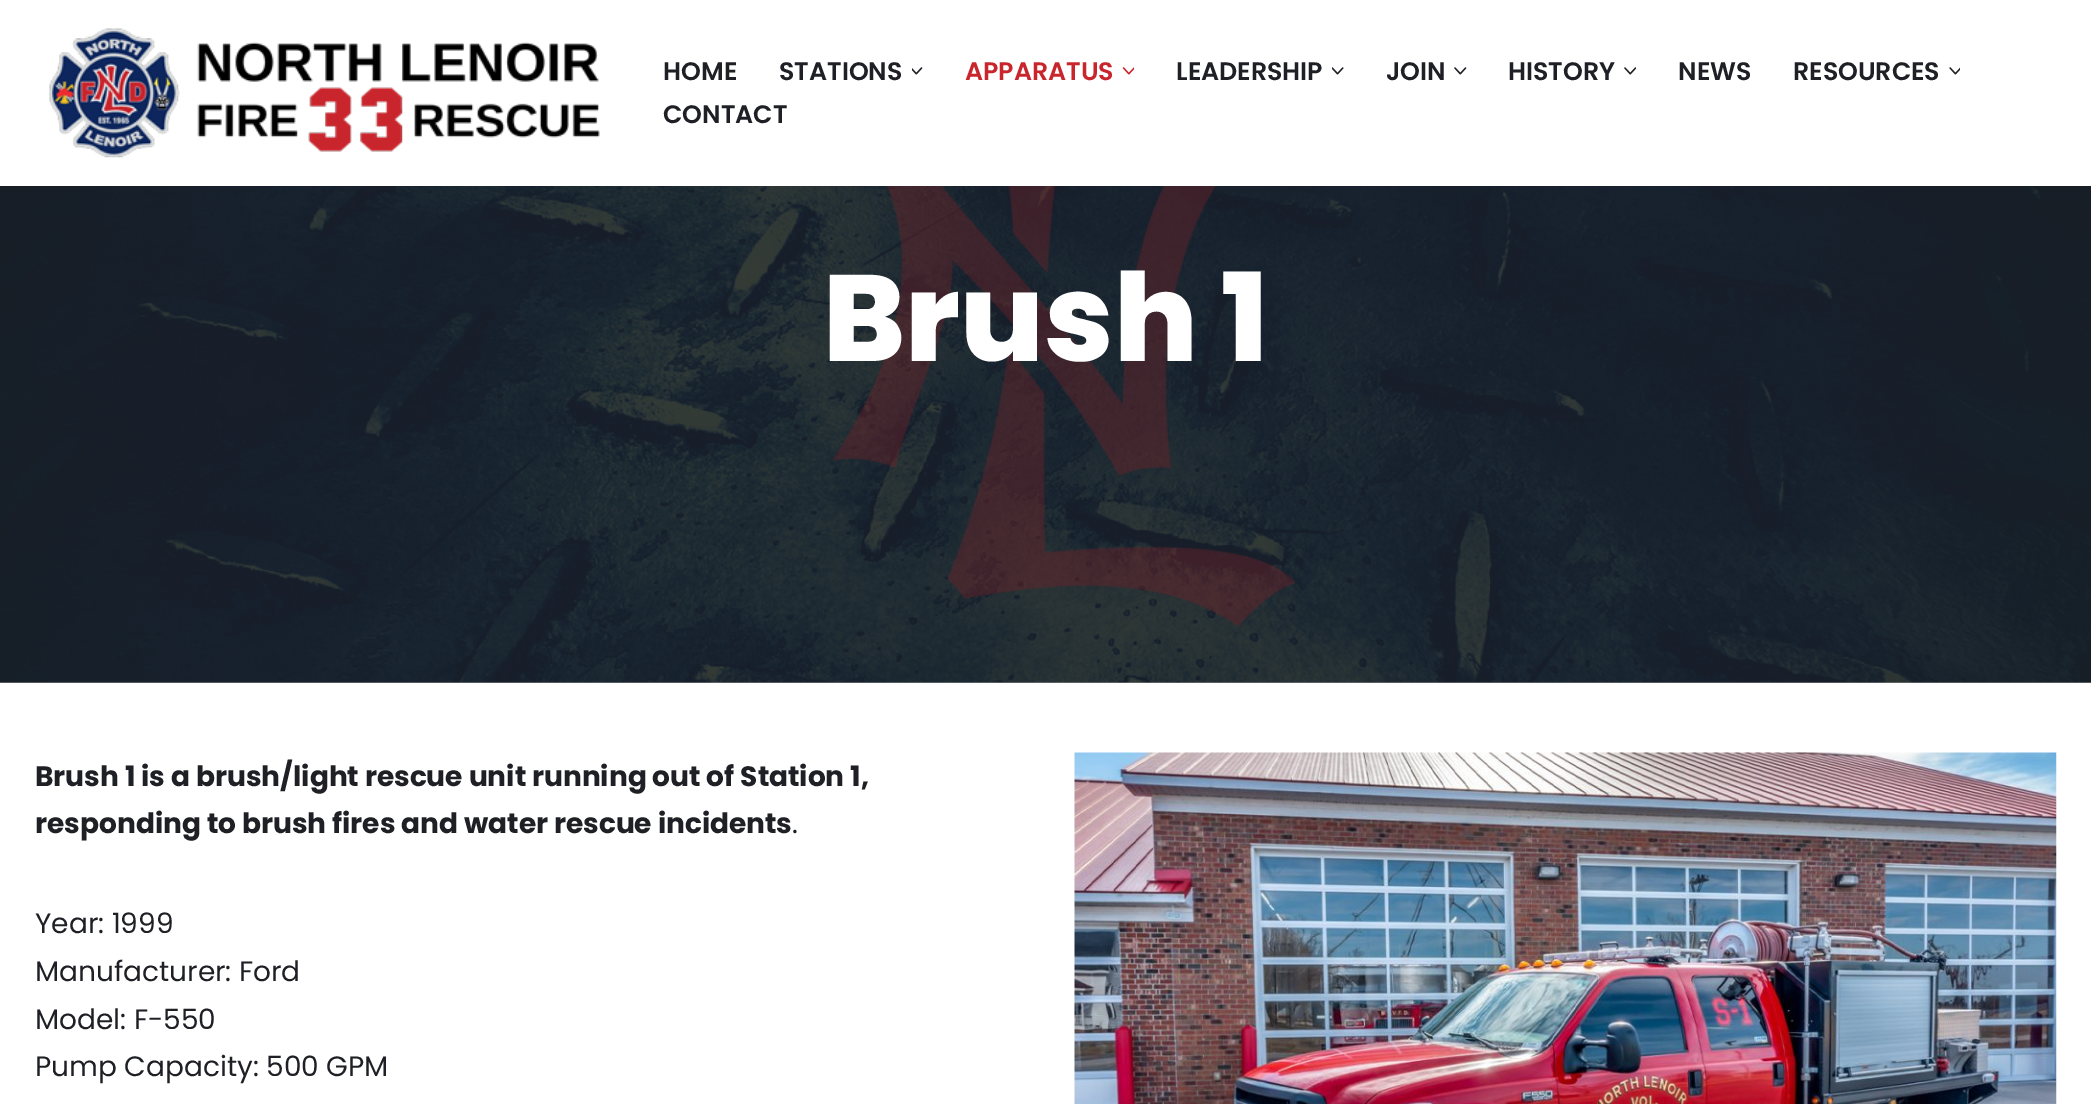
%!PS-Adobe-3.0
%%BoundingBox: 0 0 2091 1104
%%LanguageLevel: 3
%%Pages: 1
%%EndComments
%%BeginProlog
/drawimage { 5 dict begin { /h /w /y /x /name } { exch def } forall
  gsave x y translate w h scale
  w h 8 [w 0 0 h 0 0] name (r) file false 3 colorimage grestore end } def
%%EndProlog
%%BeginSetup
<< /PageSize [2091 1104] >> setpagedevice
%%EndSetup
%%Page: 1 1
0 1104 translate 1 -1 scale
4 setmiterlimit
1 setgray
0 0 2091 1104 rectfill
0.561 0.565 0.573 setrgbcolor
0 682 2091 1 rectfill
(images/1.raw) 48 28 552 130 drawimage
(images/2.raw) 912 67 11 8 drawimage
(images/3.raw) 1122 67 12 8 drawimage
(images/4.raw) 1332 67 12 8 drawimage
(images/5.raw) 1454 67 13 8 drawimage
(images/6.raw) 1624 67 12 8 drawimage
(images/7.raw) 1949 67 11 8 drawimage
(images/8.raw) 0 186 2091 497 drawimage
(images/9.raw) 1074 752 983 352 drawimage
/Poppins-SemiBold [25.25 0 0 -25.25 0 0] selectfont
0.122 0.125 0.145 setrgbcolor
663 80 moveto (HOME) show
779 80 moveto (STATIONS) show
0.784 0.145 0.176 setrgbcolor
965 80 moveto (APPARATUS) show
0.122 0.125 0.145 setrgbcolor
1176 80 moveto (LEADERSHIP) show
1386 80 moveto (JOIN) show
1508 80 moveto (HISTORY) show
1678 80 moveto (NEWS) show
1793 80 moveto (RESOURCES) show
663 123 moveto (CONTACT) show
/Poppins-ExtraBold [122.5 0 0 -122.5 0 0] selectfont
1 setgray
823 361 moveto (Brush 1) show
/Poppins-Bold [28 0 0 -28 0 0] selectfont
0.122 0.125 0.145 setrgbcolor
35 786 moveto (Brush 1 is a brush/light rescue unit running out of Station 1,) show
35 833 moveto (responding to brush fires and water rescue incidents) show
/Poppins-Regular [28 0 0 -28 0 0] selectfont
792 833 moveto (.) show
35 933 moveto (Year: 1999) show
35 981 moveto (Manufacturer: Ford) show
35 1029 moveto (Model: F-550) show
35 1076 moveto (Pump Capacity: 500 GPM) show
showpage
%%EOF
